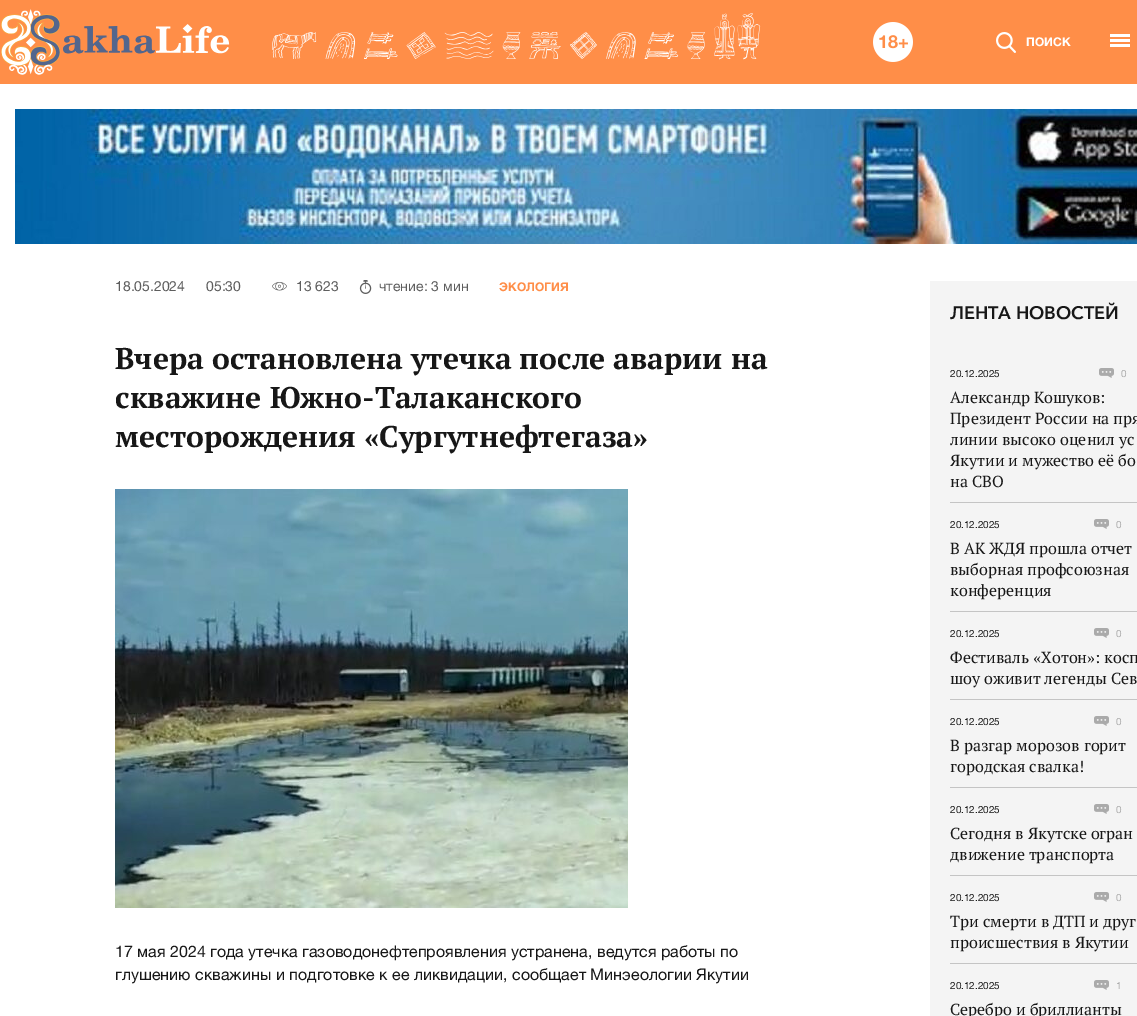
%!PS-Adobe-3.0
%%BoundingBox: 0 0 1137 1016
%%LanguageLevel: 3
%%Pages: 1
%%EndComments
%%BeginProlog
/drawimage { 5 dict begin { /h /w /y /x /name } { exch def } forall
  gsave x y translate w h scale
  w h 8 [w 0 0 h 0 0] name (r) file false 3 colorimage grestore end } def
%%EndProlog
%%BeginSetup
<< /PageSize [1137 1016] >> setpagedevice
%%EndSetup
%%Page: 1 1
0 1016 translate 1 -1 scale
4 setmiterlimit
1 setgray
0 0 1137 1016 rectfill
1 0.557 0.282 setrgbcolor
0 0 1137 84 rectfill
(images/1.raw) 272 13 489 47 drawimage
(images/2.raw) 0 9 230 66 drawimage
(images/3.raw) 873 22 40 40 drawimage
(images/4.raw) 996 32 20 21 drawimage
1 setgray
1110 39 20 3 rectfill
1110 34 20 3 rectfill
1110 44 20 3 rectfill
(images/5.raw) 15 109 1122 135 drawimage
(images/6.raw) 272 282 15 9 drawimage
(images/7.raw) 359 280 13 14 drawimage
(images/8.raw) 115 489 513 419 drawimage
0.957 setgray
930 281 207 735 rectfill
(images/9.raw) 1099 368 15 10 drawimage
0.769 setgray
950 502 187 1 rectfill
(images/9.raw) 1094 519 15 10 drawimage
950 611 187 1 rectfill
(images/9.raw) 1094 628 15 10 drawimage
950 699 187 1 rectfill
(images/9.raw) 1094 716 15 10 drawimage
950 787 187 1 rectfill
(images/9.raw) 1094 804 15 10 drawimage
950 875 187 1 rectfill
(images/9.raw) 1094 892 15 10 drawimage
950 963 187 1 rectfill
(images/9.raw) 1094 980 15 10 drawimage
/HelveticaNeue-Bold [12 0 0 -12 0 0] selectfont
1 setgray
1026 46 moveto (ПОИСК) show
/HelveticaNeue-Regular [14 0 0 -14 0 0] selectfont
0.369 setgray
115 291 moveto (18.05.2024) show
206 291 moveto (05:30) show
296 291 moveto (13 623) show
379 291 moveto (чтение: 3 мин) show
/HelveticaNeue-Bold [12 0 0 -12 0 0] selectfont
1 0.557 0.282 setrgbcolor
499 291 moveto (ЭКОЛОГИЯ) show
/PTSerif-Bold [30 0 0 -30 0 0] selectfont
0.09 setgray
115 369 moveto (Вчера остановлена утечка после аварии на) show
115 408 moveto (скважине Южно-Талаканского) show
115 447 moveto (месторождения) show
/LiberationSerif-Bold [30 0 0 -30 0 0] selectfont
364 447 moveto («) show
/PTSerif-Bold [30 0 0 -30 0 0] selectfont
379 447 moveto (Сургутнефтегаза) show
/LiberationSerif-Bold [30 0 0 -30 0 0] selectfont
633 447 moveto (») show
/HelveticaNeue-Regular [16 0 0 -16 0 0] selectfont
115 957 moveto (17 мая 2024 года утечка газоводонефтепроявления устранена, ведутся работы по) show
115 980 moveto (глушению скважины и подготовке к ее ликвидации, сообщает Минэеологии Якутии) show
/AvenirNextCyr-Bold [18 0 0 -18 0 0] selectfont
950 319 moveto (ЛЕНТА НОВОСТЕЙ) show
/HelveticaNeue-Regular [10 0 0 -10 0 0] selectfont
950 377 moveto (20.12.2025) show
0.667 setgray
1121 377 moveto (0) show
/PTSerif-Regular [16 0 0 -16 0 0] selectfont
0.09 setgray
950 403 moveto (Александр Кошуков:) show
950 424 moveto (Президент России на пря) show
950 445 moveto (линии высоко оценил ус) show
950 466 moveto (Якутии и мужество её бо) show
950 487 moveto (на СВО) show
/HelveticaNeue-Regular [10 0 0 -10 0 0] selectfont
950 528 moveto (20.12.2025) show
0.667 setgray
1116 528 moveto (0) show
/PTSerif-Regular [16 0 0 -16 0 0] selectfont
0.09 setgray
950 554 moveto (В АК ЖДЯ прошла отчет) show
950 575 moveto (выборная профсоюзная) show
950 596 moveto (конференция) show
/HelveticaNeue-Regular [10 0 0 -10 0 0] selectfont
950 637 moveto (20.12.2025) show
0.667 setgray
1116 637 moveto (0) show
/PTSerif-Regular [16 0 0 -16 0 0] selectfont
0.09 setgray
950 663 moveto (Фестиваль) show
/LiberationSerif-Regular [16 0 0 -16 0 0] selectfont
1033 663 moveto («) show
/PTSerif-Regular [16 0 0 -16 0 0] selectfont
1041 663 moveto (Хотон) show
/LiberationSerif-Regular [16 0 0 -16 0 0] selectfont
1087 663 moveto (») show
/PTSerif-Regular [16 0 0 -16 0 0] selectfont
1095 663 moveto (: косп) show
950 684 moveto (шоу оживит легенды Сев) show
/HelveticaNeue-Regular [10 0 0 -10 0 0] selectfont
950 725 moveto (20.12.2025) show
0.667 setgray
1116 725 moveto (0) show
/PTSerif-Regular [16 0 0 -16 0 0] selectfont
0.09 setgray
950 751 moveto (В разгар морозов горит) show
950 772 moveto (городская свалка!) show
/HelveticaNeue-Regular [10 0 0 -10 0 0] selectfont
950 813 moveto (20.12.2025) show
0.667 setgray
1116 813 moveto (0) show
/PTSerif-Regular [16 0 0 -16 0 0] selectfont
0.09 setgray
950 839 moveto (Сегодня в Якутске огран) show
950 860 moveto (движение транспорта) show
/HelveticaNeue-Regular [10 0 0 -10 0 0] selectfont
950 901 moveto (20.12.2025) show
0.667 setgray
1116 901 moveto (0) show
/PTSerif-Regular [16 0 0 -16 0 0] selectfont
0.09 setgray
950 927 moveto (Три смерти в ДТП и друг) show
950 948 moveto (происшествия в Якутии) show
/HelveticaNeue-Regular [10 0 0 -10 0 0] selectfont
950 989 moveto (20.12.2025) show
0.667 setgray
1116 989 moveto (1) show
/PTSerif-Regular [16 0 0 -16 0 0] selectfont
0.09 setgray
950 1015 moveto (Серебро и бриллианты) show
showpage
%%EOF
